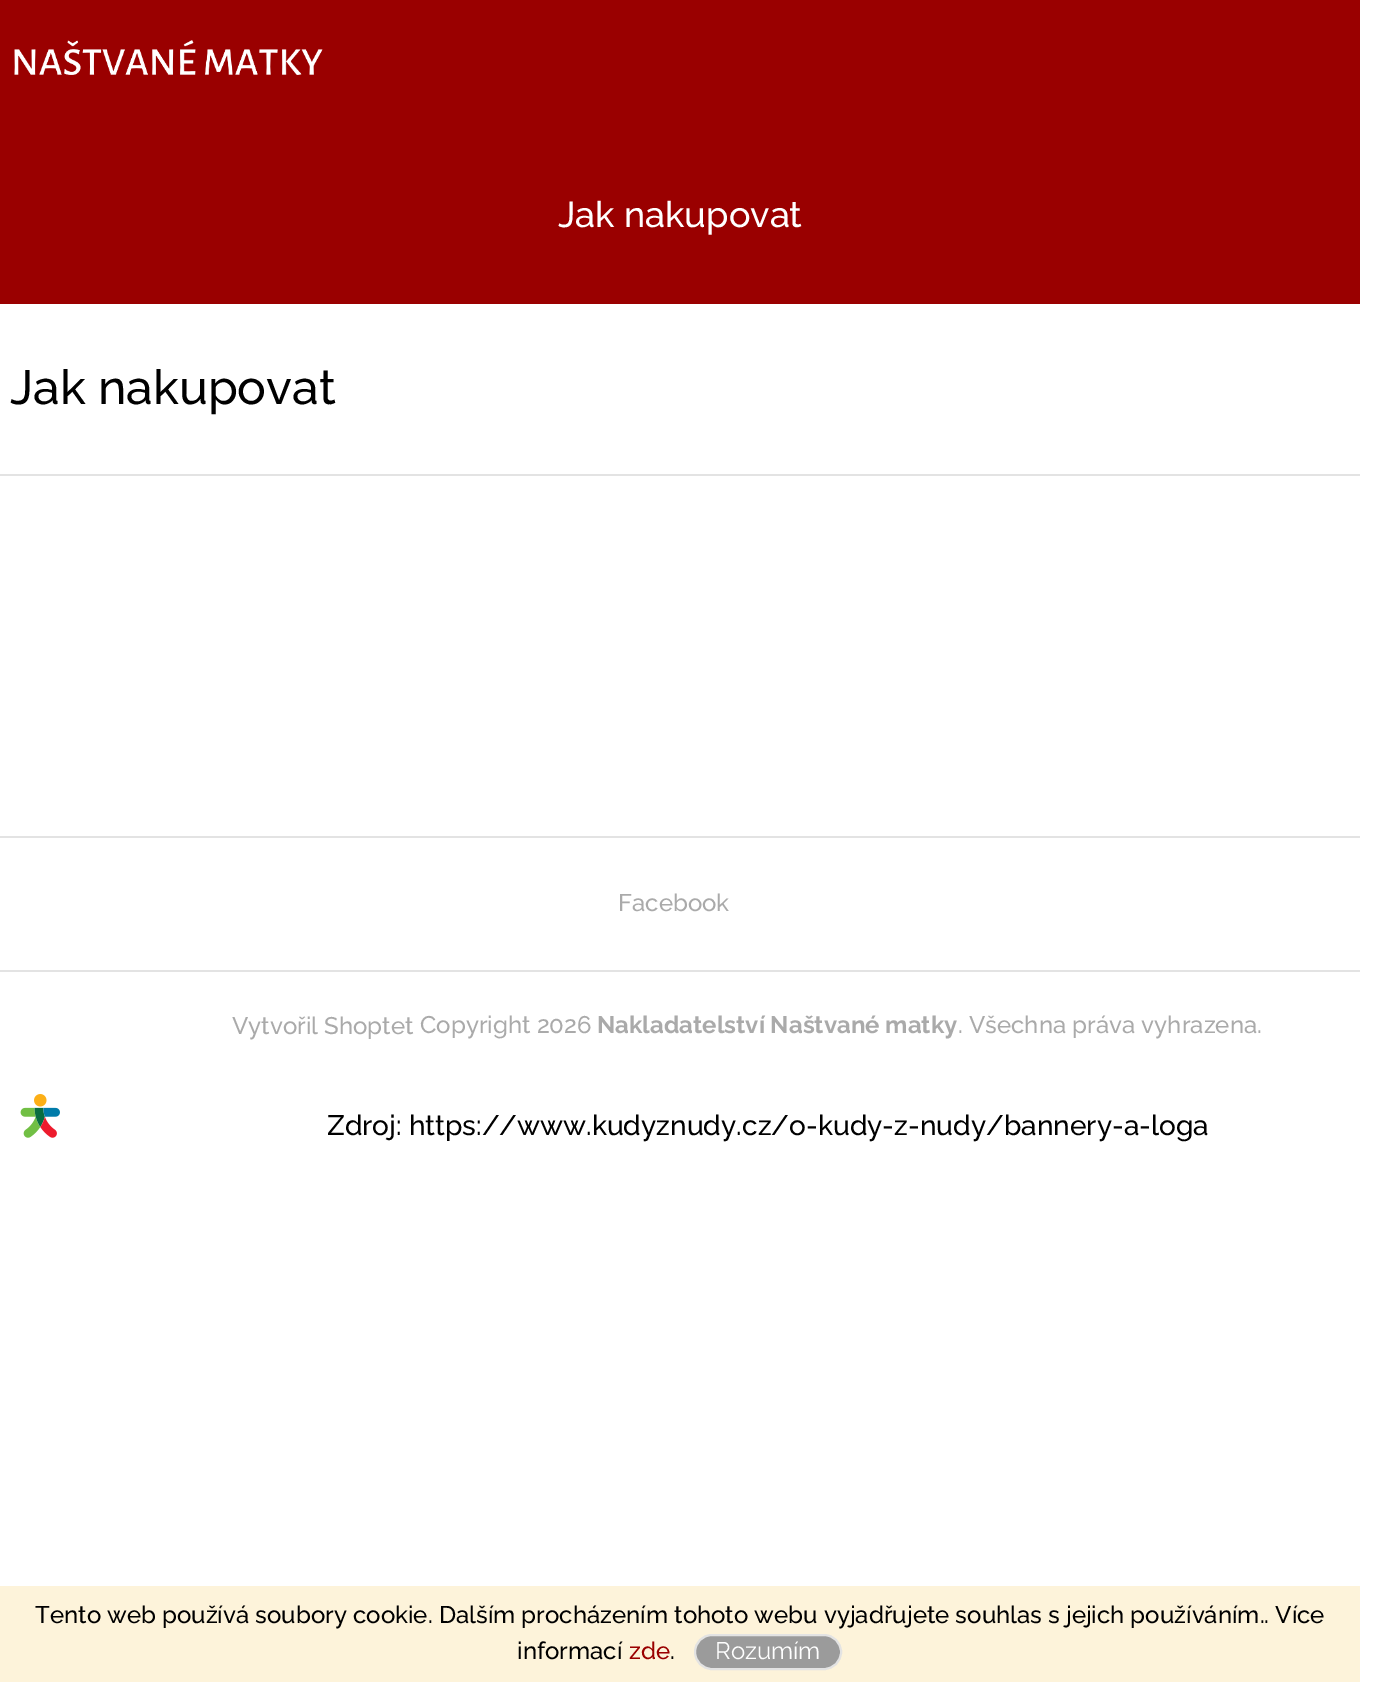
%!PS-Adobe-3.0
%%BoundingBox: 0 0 1389 1682
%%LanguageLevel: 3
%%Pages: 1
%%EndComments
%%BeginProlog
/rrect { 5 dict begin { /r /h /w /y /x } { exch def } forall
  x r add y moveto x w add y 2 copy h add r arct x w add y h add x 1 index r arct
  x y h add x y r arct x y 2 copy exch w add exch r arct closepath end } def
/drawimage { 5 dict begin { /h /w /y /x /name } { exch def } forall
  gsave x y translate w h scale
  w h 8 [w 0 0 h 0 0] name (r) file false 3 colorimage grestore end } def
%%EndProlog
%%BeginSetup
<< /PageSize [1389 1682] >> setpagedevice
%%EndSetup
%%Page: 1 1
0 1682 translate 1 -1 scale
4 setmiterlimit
1 setgray
0 0 1389 1682 rectfill
0.604 0 0 setrgbcolor
0 0 1360 304 rectfill
(images/1.raw) 14 40 309 35 drawimage
0.89 setgray
0 474 1360 2 rectfill
0 836 1360 2 rectfill
0 970 1360 2 rectfill
(images/2.raw) 20 1094 40 44 drawimage
0.992 0.953 0.855 setrgbcolor
0 1586 1360 96 rectfill
0.608 setgray
695 1635 146 34 17 rrect gsave fill grestore
0.89 setgray
2 setlinewidth
stroke
/Raleway-Medium [36 0 0 -36 0 0] selectfont
1 setgray
558 227 moveto (Jak nakupovat) show
/Raleway-Medium [48 0 0 -48 0 0] selectfont
0 setgray
10 404 moveto (Jak nakupovat) show
/Raleway-Medium [24 0 0 -24 0 0] selectfont
0.667 setgray
618 911 moveto (Facebook) show
232 1034 moveto (Vytvořil Shoptet) show
420 1033 moveto (Copyright 2026) show
/Raleway-Bold [24 0 0 -24 0 0] selectfont
597 1033 moveto (Nakladatelství Naštvané matky) show
/Raleway-Medium [24 0 0 -24 0 0] selectfont
958 1033 moveto (. Všechna práva vyhrazena.) show
/Raleway-Medium [28 0 0 -28 0 0] selectfont
0 setgray
327 1135 moveto (Zdroj: https://www.kudyznudy.cz/o-kudy-z-nudy/bannery-a-loga) show
/Raleway-Medium [24 0 0 -24 0 0] selectfont
35 1623 moveto (Tento web používá soubory cookie. Dalším procházením tohoto webu vyjadřujete souhlas s jejich používáním.. Více) show
517 1659 moveto (informací) show
0.604 0 0 setrgbcolor
629 1659 moveto (zde) show
0 setgray
670 1659 moveto (.) show
/Raleway-Regular [24 0 0 -24 0 0] selectfont
1 setgray
715 1659 moveto (Rozumím) show
showpage
%%EOF
